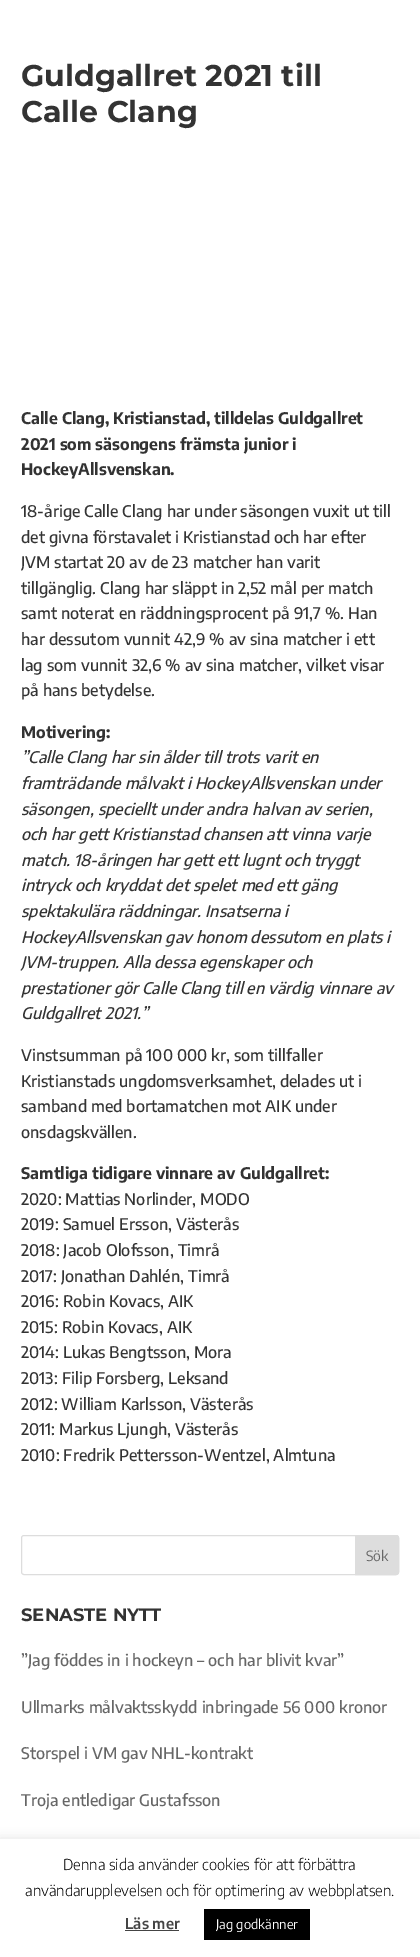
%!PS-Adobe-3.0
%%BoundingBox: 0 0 420 1957
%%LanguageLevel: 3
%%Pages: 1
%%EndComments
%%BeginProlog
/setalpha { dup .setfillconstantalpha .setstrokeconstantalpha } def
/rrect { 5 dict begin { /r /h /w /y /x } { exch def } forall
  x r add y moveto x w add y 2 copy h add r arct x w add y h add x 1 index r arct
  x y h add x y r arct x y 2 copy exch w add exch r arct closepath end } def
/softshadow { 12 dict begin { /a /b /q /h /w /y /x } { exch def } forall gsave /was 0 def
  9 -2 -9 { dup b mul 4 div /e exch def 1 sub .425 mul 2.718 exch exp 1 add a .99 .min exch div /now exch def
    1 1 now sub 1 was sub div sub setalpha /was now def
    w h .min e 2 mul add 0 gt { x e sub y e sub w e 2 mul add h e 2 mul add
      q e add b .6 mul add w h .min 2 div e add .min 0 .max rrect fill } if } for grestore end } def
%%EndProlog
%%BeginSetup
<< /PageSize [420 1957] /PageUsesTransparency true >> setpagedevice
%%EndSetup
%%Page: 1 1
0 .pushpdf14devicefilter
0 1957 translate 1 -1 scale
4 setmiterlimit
1 setgray
0 0 420 1957 rectfill
0.867 setgray
21.5 1535.5 377 39 2.5 rrect stroke
newpath 355.5 1535.5 moveto 396 1535.5 lineto 397.5 1535.5 398.5 1536.5 398.5 1538 curveto 398.5 1572 lineto 398.5 1573.5 397.5 1574.5 396 1574.5 curveto 355.5 1574.5 lineto closepath gsave fill grestore
stroke
0.675 0.671 0.671 setrgbcolor
0 1838 420 118 0 5 0.3 softshadow
1 setgray
0 1839 420 118 rectfill
0.267 setgray
125 1930 54 1 rectfill
0 setgray
204 1909 106 31 rectfill
/Montserrat-Bold [30 0 0 -30 0 0] selectfont
0.2 setgray
21 86 moveto (Guldgallret 2021 till) show
21 122 moveto (Calle Clang) show
/EncodeSansCondensed-Bold [16 0 0 -16 0 0] selectfont
21 424 moveto (Calle Clang, Kristianstad, tilldelas Guldgallret) show
21 450 moveto (2021 som säsongens främsta junior i) show
21 475 moveto (HockeyAllsvenskan.) show
/EncodeSansCondensed-Medium [16 0 0 -16 0 0] selectfont
21 517 moveto (18-årige Calle Clang har under säsongen vuxit ut till) show
21 543 moveto (det givna förstavalet i Kristianstad och har efter) show
21 568 moveto (JVM startat 20 av de 23 matcher han varit) show
21 594 moveto (tillgänglig. Clang har släppt in 2,52 mål per match) show
21 619 moveto (samt noterat en räddningsprocent på 91,7 %. Han) show
21 645 moveto (har dessutom vunnit 42,9 % av sina matcher i ett) show
21 671 moveto (lag som vunnit 32,6 % av sina matcher, vilket visar) show
21 696 moveto (på hans betydelse.) show
/EncodeSansCondensed-Bold [16 0 0 -16 0 0] selectfont
21 738 moveto (Motivering:) show
/EncodeSansCondensed-MediumItalic [16 0 0 -16 0 0] selectfont
21 763 moveto (”Calle Clang har sin ålder till trots varit en) show
21 789 moveto (framträdande målvakt i HockeyAllsvenskan under) show
21 815 moveto (säsongen, speciellt under andra halvan av serien,) show
21 840 moveto (och har gett Kristianstad chansen att vinna varje) show
21 866 moveto (match. 18-åringen har gett ett lugnt och tryggt) show
21 891 moveto (intryck och kryddat det spelet med ett gäng) show
21 917 moveto (spektakulära räddningar. Insatserna i) show
21 943 moveto (HockeyAllsvenskan gav honom dessutom en plats i) show
21 968 moveto (JVM-truppen. Alla dessa egenskaper och) show
21 994 moveto (prestationer gör Calle Clang till en värdig vinnare av) show
21 1019 moveto (Guldgallret 2021.”) show
/EncodeSansCondensed-Medium [16 0 0 -16 0 0] selectfont
21 1061 moveto (Vinstsumman på 100 000 kr, som tillfaller) show
21 1087 moveto (Kristianstads ungdomsverksamhet, delades ut i) show
21 1112 moveto (samband med bortamatchen mot AIK under) show
21 1138 moveto (onsdagskvällen.) show
/EncodeSansCondensed-Bold [16 0 0 -16 0 0] selectfont
21 1179 moveto (Samtliga tidigare vinnare av Guldgallret:) show
/EncodeSansCondensed-Medium [16 0 0 -16 0 0] selectfont
21 1205 moveto (2020: Mattias Norlinder, MODO) show
21 1230 moveto (2019: Samuel Ersson, Västerås) show
21 1256 moveto (2018: Jacob Olofsson, Timrå) show
21 1282 moveto (2017: Jonathan Dahlén, Timrå) show
21 1307 moveto (2016: Robin Kovacs, AIK) show
21 1333 moveto (2015: Robin Kovacs, AIK) show
21 1358 moveto (2014: Lukas Bengtsson, Mora) show
21 1384 moveto (2013: Filip Forsberg, Leksand) show
21 1410 moveto (2012: William Karlsson, Västerås) show
21 1435 moveto (2011: Markus Ljungh, Västerås) show
21 1461 moveto (2010: Fredrik Pettersson-Wentzel, Almtuna) show
/EncodeSansCondensed-Regular [14 0 0 -14 0 0] selectfont
0.4 setgray
366 1561 moveto (Sök) show
/Montserrat-Bold [18 0 0 -18 0 0] selectfont
0.2 setgray
21 1621 moveto (SENASTE NYTT) show
/EncodeSansCondensed-Medium [16 0 0 -16 0 0] selectfont
0.4 setgray
21 1666 moveto (”Jag föddes in i hockeyn – och har blivit kvar”) show
21 1713 moveto (Ullmarks målvaktsskydd inbringade 56 000 kronor) show
21 1759 moveto (Storspel i VM gav NHL-kontrakt) show
21 1806 moveto (Troja entledigar Gustafsson) show
/EncodeSansCondensed-Light [15 0 0 -15 0 0] selectfont
0 setgray
63 1870 moveto (Denna sida använder cookies för att förbättra) show
25 1896 moveto (användarupplevelsen och för optimering av webbplatsen.) show
/EncodeSansCondensed-SemiBold [15 0 0 -15 0 0] selectfont
0.267 setgray
125 1929 moveto (Läs mer) show
/EncodeSansCondensed-Regular [13 0 0 -13 0 0] selectfont
1 setgray
216 1929 moveto (Jag godkänner) show
.poppdf14devicefilter showpage
%%EOF
